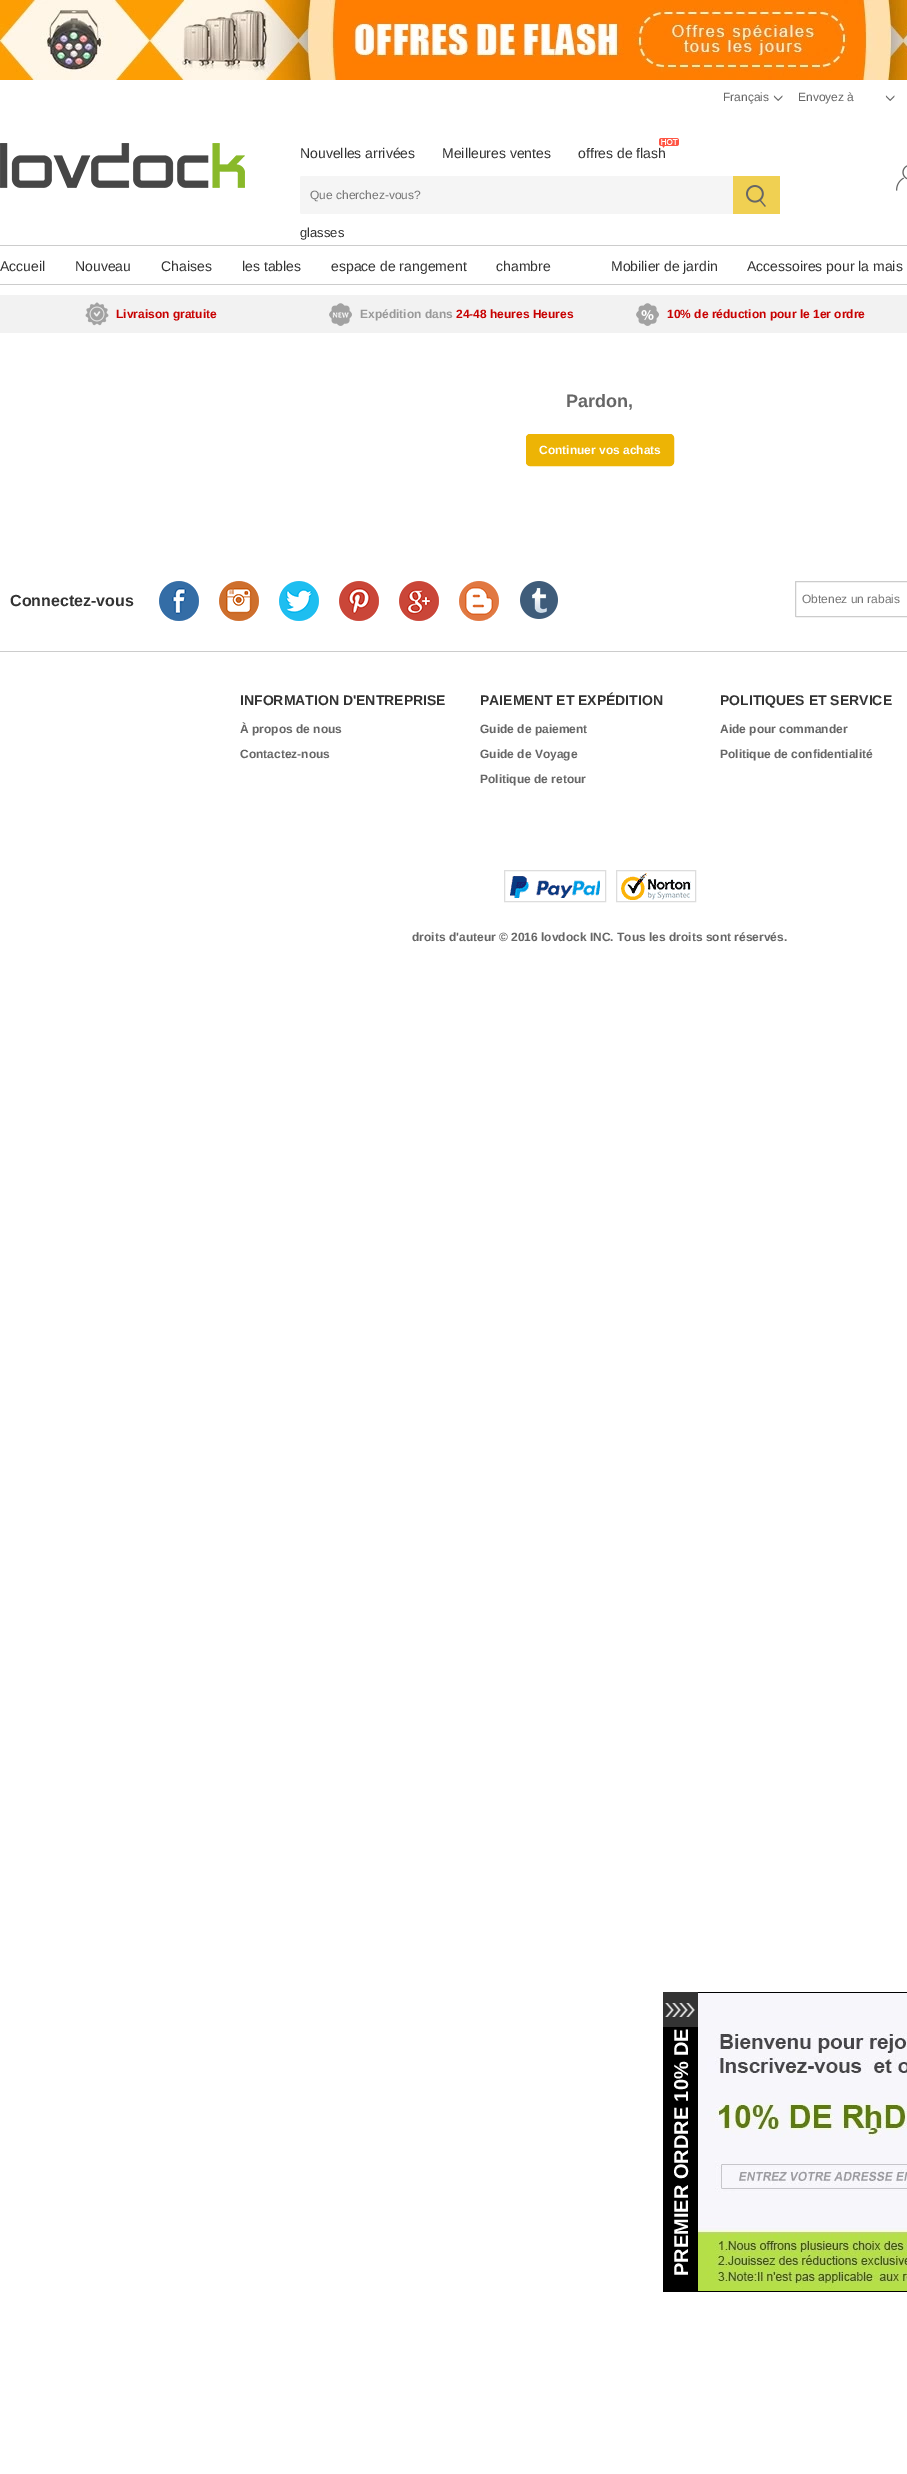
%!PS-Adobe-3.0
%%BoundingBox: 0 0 907 2474
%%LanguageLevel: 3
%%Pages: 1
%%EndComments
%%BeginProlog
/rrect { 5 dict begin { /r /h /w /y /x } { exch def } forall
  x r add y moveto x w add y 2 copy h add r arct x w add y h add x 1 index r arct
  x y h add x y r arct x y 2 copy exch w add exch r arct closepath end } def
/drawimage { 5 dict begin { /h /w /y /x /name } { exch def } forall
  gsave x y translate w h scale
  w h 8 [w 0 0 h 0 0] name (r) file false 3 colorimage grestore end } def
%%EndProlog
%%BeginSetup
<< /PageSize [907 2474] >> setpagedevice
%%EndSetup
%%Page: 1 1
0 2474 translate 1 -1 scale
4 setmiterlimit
1 setgray
0 0 907 2474 rectfill
(images/1.raw) 0 0 907 80 drawimage
(images/2.raw) 773 95 10 6 drawimage
(images/2.raw) 885 95 10 6 drawimage
(images/3.raw) 0 143 245 45 drawimage
0.961 setgray
300 176 480 38 2 rrect fill
0.941 0.816 0.322 setrgbcolor
733 176 47 38 rectfill
(images/5.raw) 746 185 20 22 drawimage
(images/6.raw) 896 165 11 26 drawimage
0.8 setgray
0 245 907 1 rectfill
0 284 907 1 rectfill
0.949 setgray
0 295 907 38 rectfill
(images/7.raw) 85 302 24 24 drawimage
(images/8.raw) 329 303 23 23 drawimage
(images/9.raw) 636 303 23 23 drawimage
0.929 0.706 0.02 setrgbcolor
526.5 434.5 147 31 3.5 rrect gsave fill grestore
stroke
(images/10.raw) 159 581 40 40 drawimage
(images/11.raw) 219 581 40 40 drawimage
(images/12.raw) 279 581 40 40 drawimage
(images/13.raw) 339 581 40 40 drawimage
(images/14.raw) 399 581 40 40 drawimage
(images/15.raw) 459 581 40 40 drawimage
(images/16.raw) 520 581 38 38 drawimage
0.8 setgray
795.5 581.5 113 35 0.5 rrect stroke
0 651 907 1 rectfill
(images/17.raw) 510 876 90 22 drawimage
0.867 setgray
504.5 870.5 101 31 rectstroke
(images/18.raw) 621 873 70 27 drawimage
616.5 870.5 79 31 rectstroke
0 setgray
691 2291 216 1 rectfill
663 2027 35 265 rectfill
691 1992 216 1 rectfill
0.2 setgray
663 1992 35 35 rectfill
(images/19.raw) 665 2003 30 14 drawimage
(images/20.raw) 698 1993 209 298 drawimage
/LiberationSans-Regular [12 0 0 -12 0 0] selectfont
0.4 setgray
723 101 moveto (Français) show
798 101 moveto (Envoyez à) show
/LiberationSans-Regular [14 0 0 -14 0 0] selectfont
0.2 setgray
300 158 moveto (Nouvelles arrivées) show
442 158 moveto (Meilleures ventes) show
578 158 moveto (offres de flash) show
(images/4.raw) 659 138 20 10 drawimage
/LiberationSans-Regular [12 0 0 -12 0 0] selectfont
0.459 setgray
310 199 moveto (Que cherchez-vous?) show
/LiberationSans-Regular [13 0 0 -13 0 0] selectfont
0.2 setgray
300 237 moveto (glasses) show
/LiberationSans-Regular [14 0 0 -14 0 0] selectfont
0 271 moveto (Accueil) show
75 271 moveto (Nouveau) show
161 271 moveto (Chaises) show
242 271 moveto (les tables) show
331 271 moveto (espace de rangement) show
496 271 moveto (chambre) show
611 271 moveto (Mobilier de jardin) show
747 271 moveto (Accessoires pour la mais) show
/LiberationSans-Bold [12 0 0 -12 0 0] selectfont
0.784 0 0 setrgbcolor
116 318 moveto (Livraison gratuite) show
0.6 setgray
360 318 moveto (Expédition dans) show
0.784 0 0 setrgbcolor
456 318 moveto (24-48 heures Heures) show
667 318 moveto (10% de réduction pour le 1er ordre) show
/LiberationSans-Bold [18 0 0 -18 0 0] selectfont
0.4 setgray
566 407 moveto (Pardon,) show
/LiberationSans-Bold [12 0 0 -12 0 0] selectfont
1 setgray
539 454 moveto (Continuer vos achats) show
/LiberationSans-Bold [16 0 0 -16 0 0] selectfont
0.2 setgray
10 606 moveto (Connectez-vous) show
/LiberationSans-Regular [12 0 0 -12 0 0] selectfont
0.459 setgray
802 603 moveto (Obtenez un rabais) show
/LiberationSans-Bold [14 0 0 -14 0 0] selectfont
0.2 setgray
240 705 moveto (INFORMATION D'ENTREPRISE) show
/LiberationSans-Bold [12 0 0 -12 0 0] selectfont
0.4 setgray
240 733 moveto (À propos de nous) show
240 758 moveto (Contactez-nous) show
/LiberationSans-Bold [14 0 0 -14 0 0] selectfont
0.2 setgray
480 705 moveto (PAIEMENT ET EXPÉDITION) show
/LiberationSans-Bold [12 0 0 -12 0 0] selectfont
0.4 setgray
480 733 moveto (Guide de paiement) show
480 758 moveto (Guide de Voyage) show
480 783 moveto (Politique de retour) show
/LiberationSans-Bold [14 0 0 -14 0 0] selectfont
0.2 setgray
720 705 moveto (POLITIQUES ET SERVICE) show
/LiberationSans-Bold [12 0 0 -12 0 0] selectfont
0.4 setgray
720 733 moveto (Aide pour commander) show
720 758 moveto (Politique de confidentialité) show
412 941 moveto (droits d'auteur © 2016 lovdock INC. Tous les droits sont réservés.) show
/LiberationSans-Bold [20 0 0 -20 0 0] selectfont
1 setgray
gsave 688 2276 translate -90 rotate 0 0 moveto (PREMIER ORDRE 10% DE) show grestore
showpage
%%EOF
